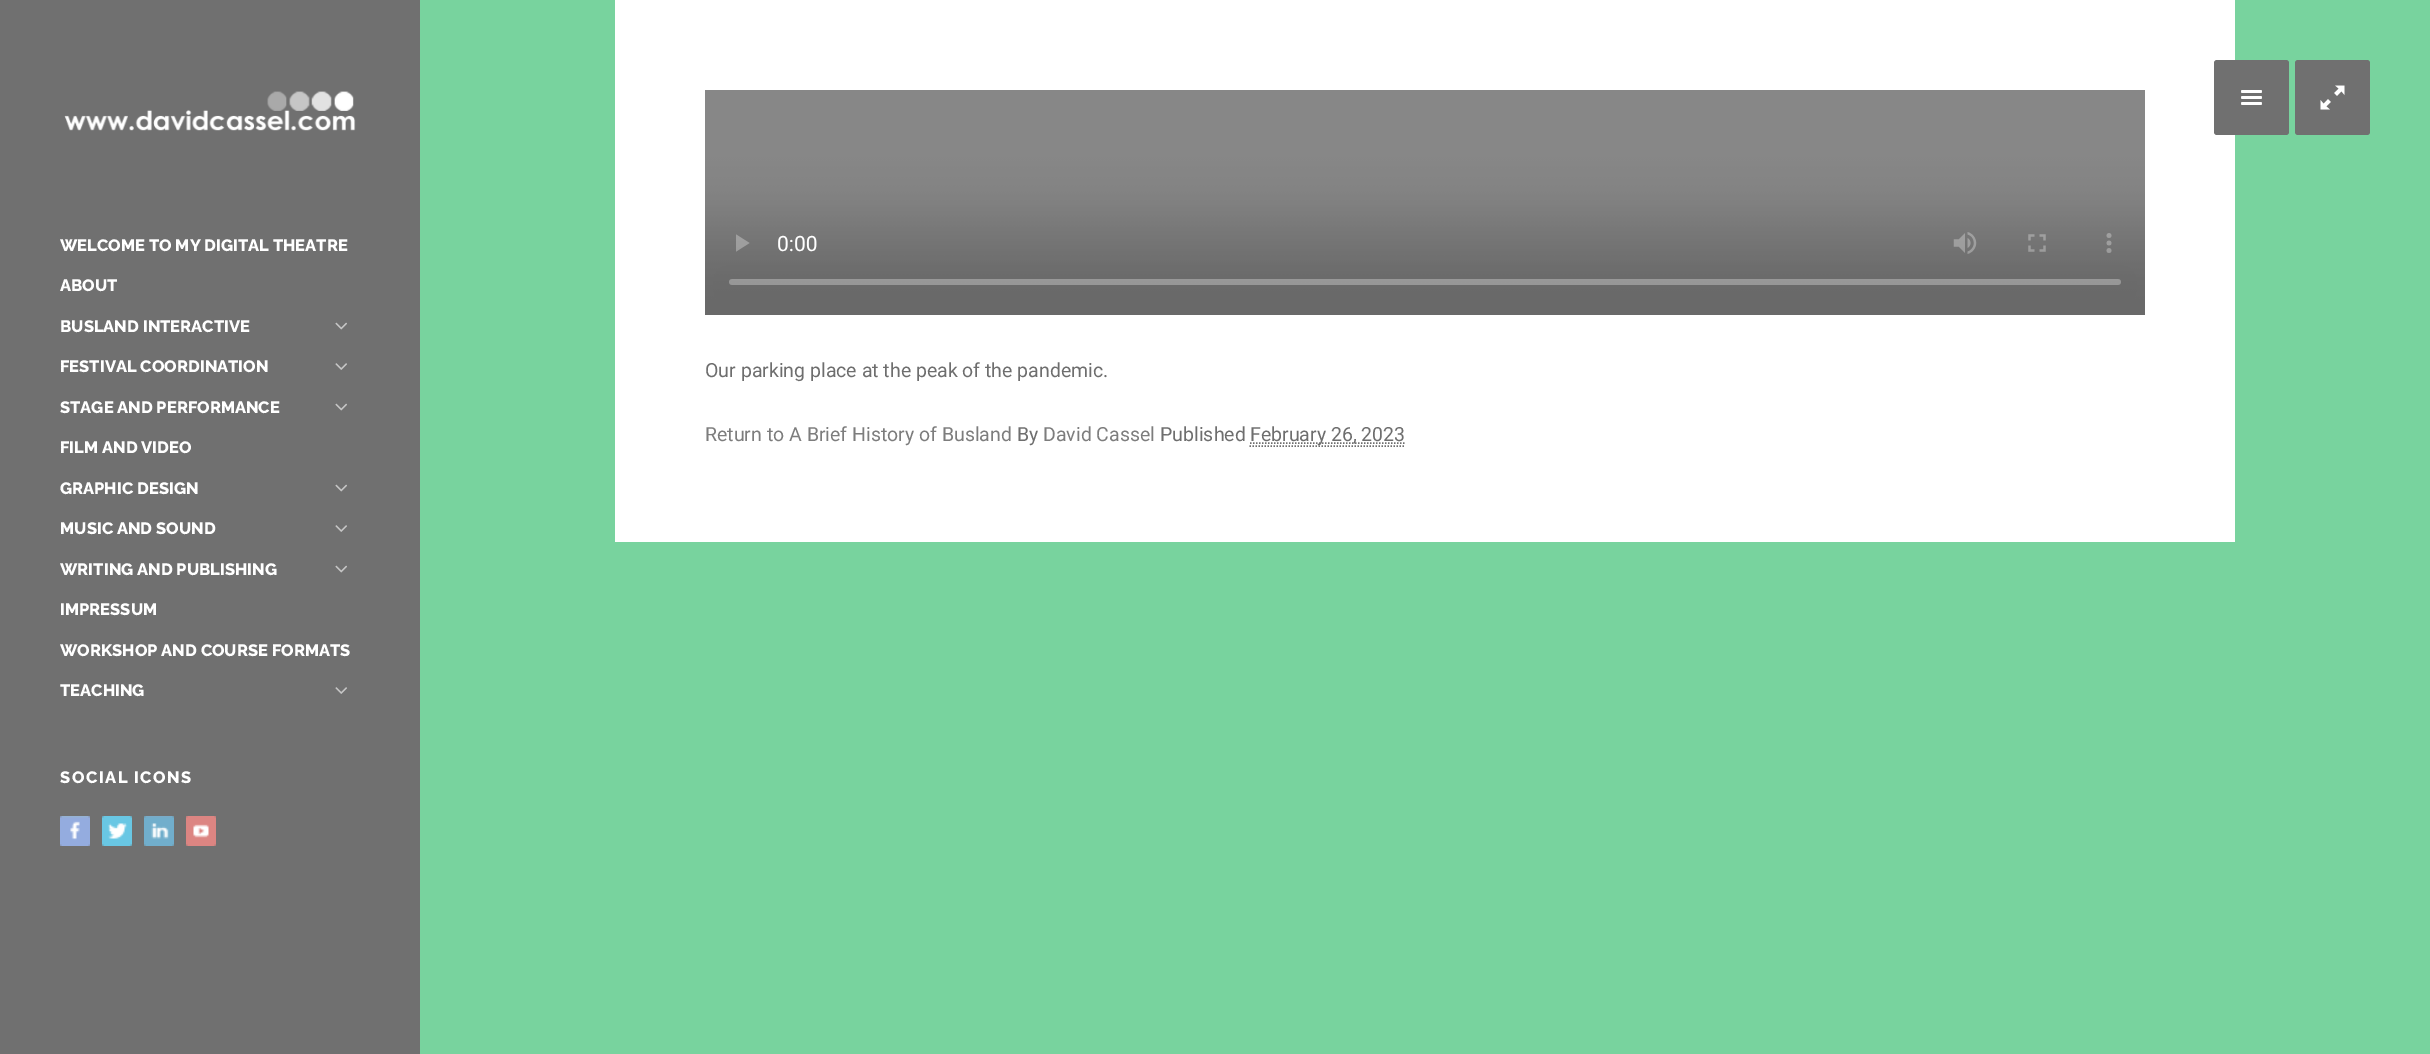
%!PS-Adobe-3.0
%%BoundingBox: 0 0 2430 1054
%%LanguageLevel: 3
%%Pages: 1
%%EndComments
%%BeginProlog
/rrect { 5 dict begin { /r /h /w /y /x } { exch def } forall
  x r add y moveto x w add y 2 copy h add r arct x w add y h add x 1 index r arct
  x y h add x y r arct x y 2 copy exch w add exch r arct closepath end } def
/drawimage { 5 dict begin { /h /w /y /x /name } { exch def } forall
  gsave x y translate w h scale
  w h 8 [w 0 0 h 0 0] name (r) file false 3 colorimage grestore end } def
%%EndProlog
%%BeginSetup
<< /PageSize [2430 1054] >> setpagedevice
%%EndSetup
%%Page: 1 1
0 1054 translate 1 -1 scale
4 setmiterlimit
0.471 0.827 0.62 setrgbcolor
0 0 2430 1054 rectfill
1 setgray
615 0 1620 542 rectfill
0.439 setgray
2214 60 75 75 3 rrect fill
(images/1.raw) 2241 90 21 15 drawimage
2295 60 75 75 3 rrect fill
(images/2.raw) 2320 85 25 25 drawimage
0 0 420 1054 rectfill
(images/3.raw) 64 91 292 40 drawimage
(images/4.raw) 335 322 12 8 drawimage
(images/5.raw) 335 363 12 7 drawimage
(images/4.raw) 335 403 12 8 drawimage
(images/4.raw) 335 484 12 8 drawimage
(images/5.raw) 335 525 12 7 drawimage
(images/4.raw) 335 565 12 8 drawimage
(images/5.raw) 335 687 12 7 drawimage
(images/6.raw) 60 816 30 30 drawimage
(images/7.raw) 102 816 30 30 drawimage
(images/8.raw) 144 816 30 30 drawimage
(images/9.raw) 186 816 30 30 drawimage
(images/10.raw) 705 90 1440 225 drawimage
0.431 setgray
1.5 setlinewidth
[1.5 1.5] 0 setdash
newpath 1249.5 446 moveto 1405.5 446 lineto stroke
newpath 1250 443 moveto 1405.5 443 lineto stroke
/Raleway-ExtraBold [16.5 0 0 -16.5 0 0] selectfont
1 setgray
60 251 moveto (WELCOME TO MY DIGITAL THEATRE) show
60 291 moveto (ABOUT) show
60 332 moveto (BUSLAND INTERACTIVE) show
60 372 moveto (FESTIVAL COORDINATION) show
60 413 moveto (STAGE AND PERFORMANCE) show
60 453 moveto (FILM AND VIDEO) show
60 494 moveto (GRAPHIC DESIGN) show
60 534 moveto (MUSIC AND SOUND) show
60 575 moveto (WRITING AND PUBLISHING) show
60 615 moveto (IMPRESSUM) show
60 656 moveto (WORKSHOP AND COURSE FORMATS) show
60 696 moveto (TEACHING) show
60 783 moveto 1.5 0 (SOCIAL ICONS) ashow
/Roboto-Regular [19.5 0 0 -19.5 0 0] selectfont
0.431 setgray
705 377 moveto (Our parking place at the peak of the pandemic.) show
0.49 setgray
705 441 moveto (Return to A Brief History of Busland) show
0.431 setgray
1017 441 moveto (By) show
0.49 setgray
1043 441 moveto (David Cassel) show
0.431 setgray
1160 441 moveto (Published) show
1250 441 moveto (February 26, 2023) show
showpage
%%EOF
